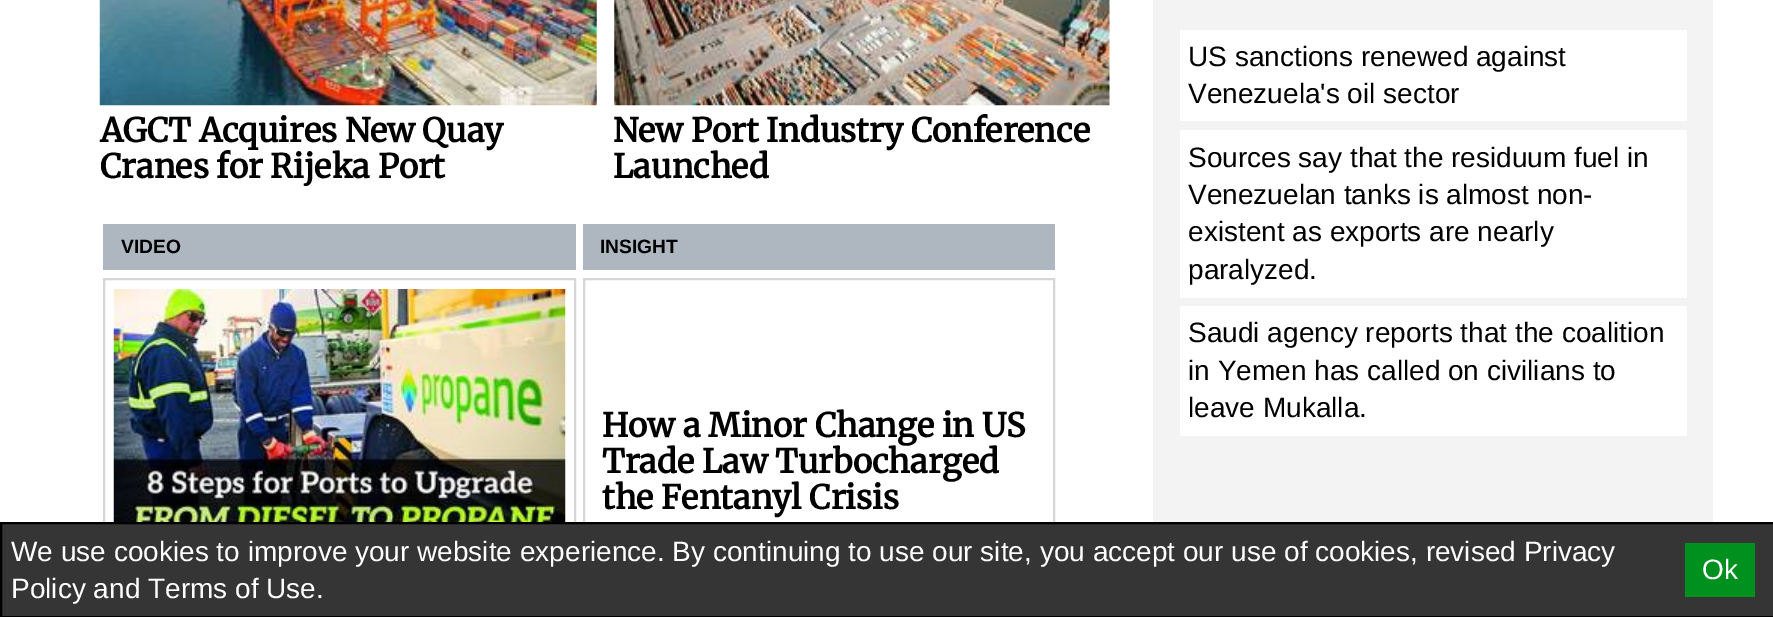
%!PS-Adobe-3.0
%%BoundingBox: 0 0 1773 617
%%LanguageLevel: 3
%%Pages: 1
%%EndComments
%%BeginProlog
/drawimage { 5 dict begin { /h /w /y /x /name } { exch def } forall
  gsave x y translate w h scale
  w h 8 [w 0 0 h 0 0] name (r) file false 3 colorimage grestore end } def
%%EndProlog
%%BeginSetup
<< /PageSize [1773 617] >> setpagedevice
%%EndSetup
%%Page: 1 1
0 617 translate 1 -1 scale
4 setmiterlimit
1 setgray
0 0 1773 617 rectfill
(images/1.raw) 99 0 498 106 drawimage
(images/2.raw) 614 0 496 106 drawimage
0.682 0.714 0.749 setrgbcolor
103 224 473 46 rectfill
0.839 setgray
2 setlinewidth
104 279 471 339 rectstroke
(images/3.raw) 113 289 453 233 drawimage
0.682 0.714 0.749 setrgbcolor
583 224 472 46 rectfill
0.839 setgray
584 279 470 257 rectstroke
0.953 setgray
1153 0 560 522 rectfill
1 setgray
1180 30 507 91 rectfill
1180 130 507 168 rectfill
1180 306 507 130 rectfill
0.208 setgray
newpath 1 523 moveto 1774 523 lineto 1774 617 lineto 1 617 lineto closepath gsave fill grestore
0 setgray
stroke
0 0.565 0.118 setrgbcolor
1685 543 70 54 rectfill
/Merriweather-Bold [32.75 0 0 -32.75 0 0] selectfont
0 setgray
100 142 moveto (AGCT Acquires New Quay) show
100 178 moveto (Cranes for Rijeka Port) show
613 142 moveto (New Port Industry Conference) show
613 178 moveto (Launched) show
/LiberationSans-Bold [19.25 0 0 -19.25 0 0] selectfont
121 253 moveto (VIDEO) show
600 253 moveto (INSIGHT) show
/Merriweather-Bold [32.75 0 0 -32.75 0 0] selectfont
602 437 moveto (How a Minor Change in US) show
602 473 moveto (Trade Law Turbocharged) show
602 509 moveto (the Fentanyl Crisis) show
/LiberationSans-Regular [28 0 0 -28 0 0] selectfont
1188 66 moveto (US sanctions renewed against) show
1188 103 moveto (Venezuela's oil sector) show
1188 167 moveto (Sources say that the residuum fuel in) show
1188 204 moveto (Venezuelan tanks is almost non-) show
1188 241 moveto (existent as exports are nearly) show
1188 279 moveto (paralyzed.) show
1188 342 moveto (Saudi agency reports that the coalition) show
1188 380 moveto (in Yemen has called on civilians to) show
1188 417 moveto (leave Mukalla.) show
1 setgray
11 561 moveto (We use cookies to improve your website experience. By continuing to use our site, you accept our use of cookies, revised Privacy) show
11 598 moveto (Policy and Terms of Use.) show
1702 579 moveto (Ok) show
showpage
%%EOF
